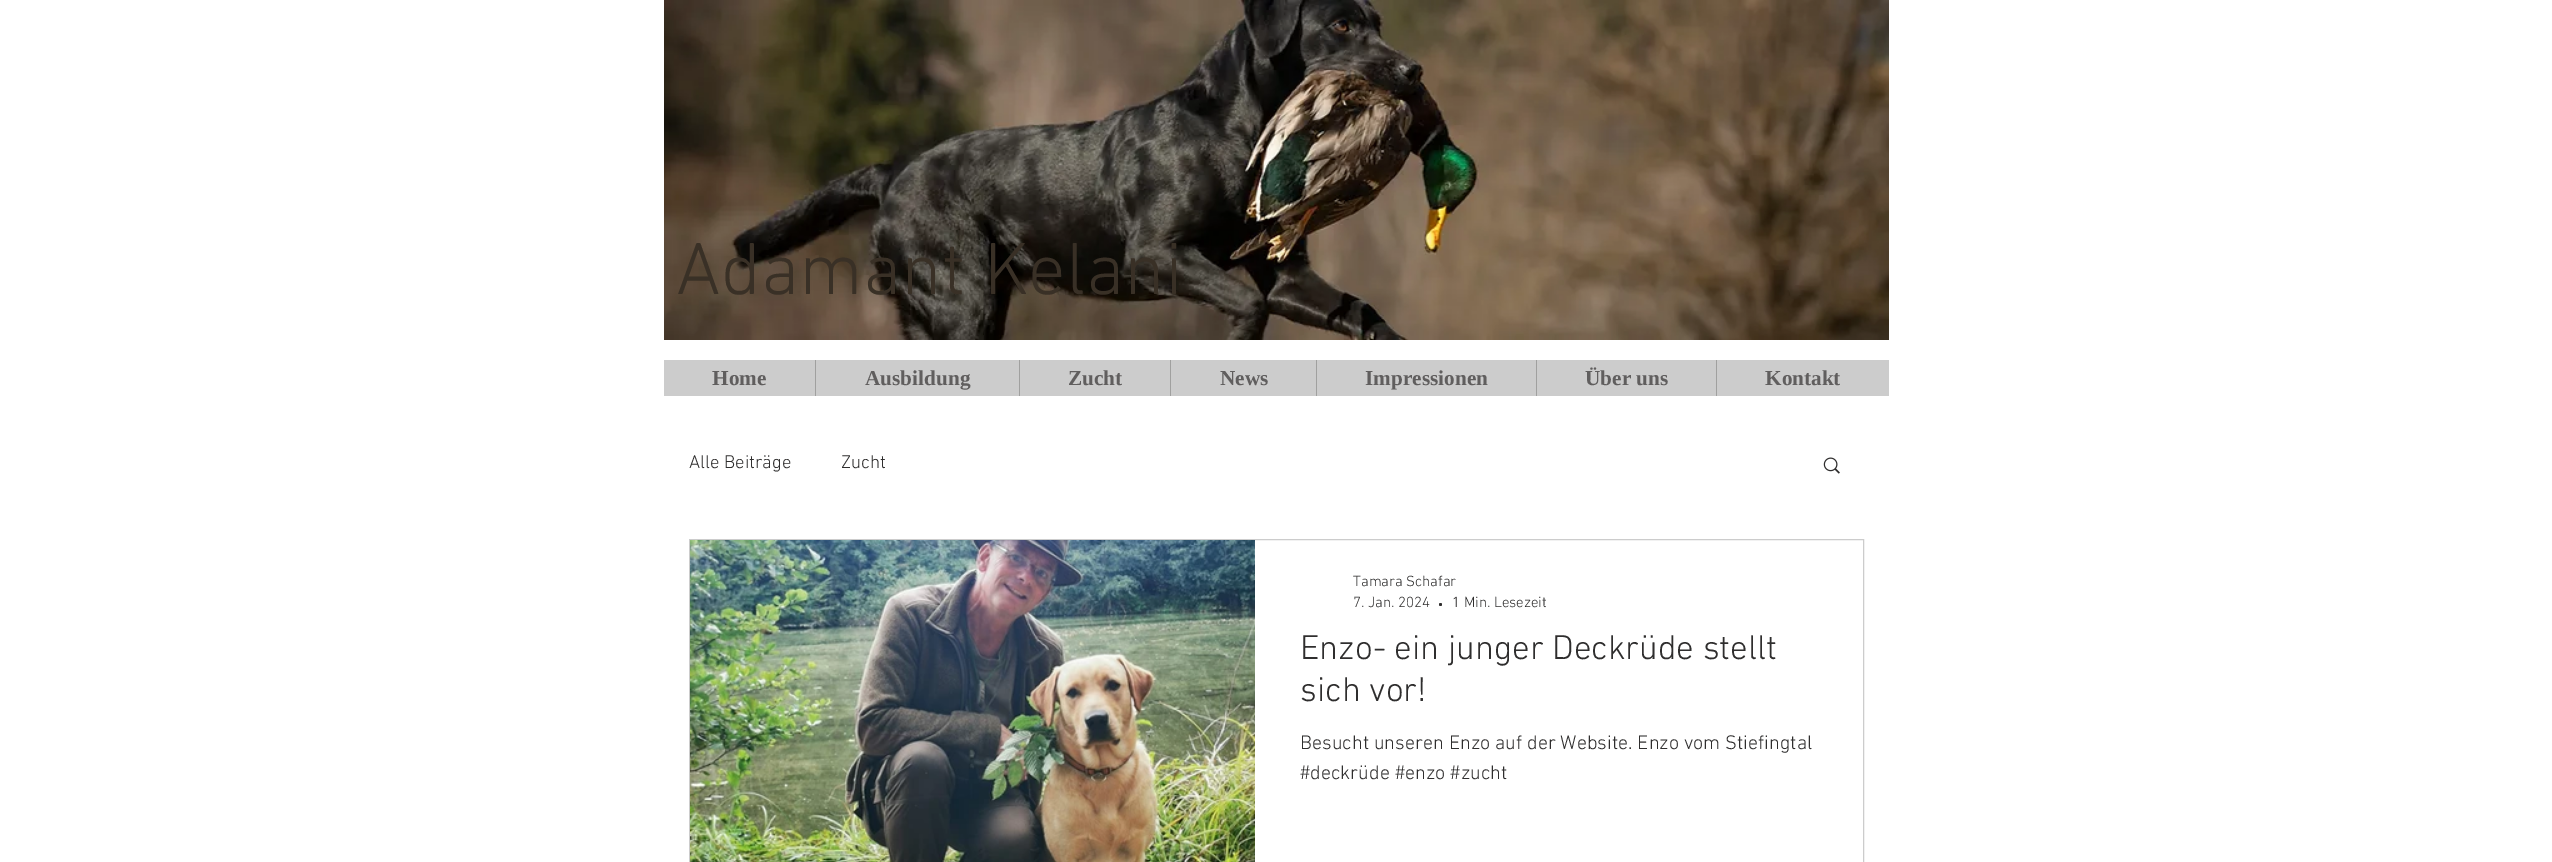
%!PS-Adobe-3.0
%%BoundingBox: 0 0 2552 862
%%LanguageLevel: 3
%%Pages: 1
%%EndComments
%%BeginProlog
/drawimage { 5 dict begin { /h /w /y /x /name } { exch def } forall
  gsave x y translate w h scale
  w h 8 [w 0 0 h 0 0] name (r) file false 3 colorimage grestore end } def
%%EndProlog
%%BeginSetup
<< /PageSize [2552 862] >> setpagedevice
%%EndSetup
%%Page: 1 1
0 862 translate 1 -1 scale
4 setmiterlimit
1 setgray
0 0 2552 862 rectfill
(images/1.raw) 664 0 1225 340 drawimage
0.8 setgray
664 360 1225 36 rectfill
0.627 0.627 0.624 setrgbcolor
815 360 1 36 rectfill
1019 360 1 36 rectfill
1170 360 1 36 rectfill
1316 360 1 36 rectfill
1536 360 1 36 rectfill
1716 360 1 36 rectfill
(images/2.raw) 1823 457 17 17 drawimage
0.8 setgray
689.5 539.5 1174 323 rectstroke
(images/3.raw) 690 540 565 322 drawimage
0.184 0.18 0.18 setrgbcolor
newpath 1440.5 604.5 1.5 0 360 arc closepath fill
/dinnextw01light-Light [75 0 0 -75 0 0] selectfont
0.224 0.188 0.149 setrgbcolor
676 294 moveto (Adamant Kelani) show
/LiberationSerif-Bold [21.25 0 0 -21.25 0 0] selectfont
0.376 0.369 0.369 setrgbcolor
712 385 moveto (Home) show
865 385 moveto (Ausbildung) show
1068 385 moveto (Zucht) show
1220 385 moveto (News) show
1365 385 moveto (Impressionen) show
1585 385 moveto (Über uns) show
1765 385 moveto (Kontakt) show
/dinnextw01light-Light [18.75 0 0 -18.75 0 0] selectfont
0.184 0.18 0.18 setrgbcolor
689 468 moveto (Alle Beiträge) show
841 468 moveto (Zucht) show
/dinnextw01light-Light [15 0 0 -15 0 0] selectfont
1353 586 moveto (Tamara Schafar) show
1353 607 moveto (7. Jan. 2024) show
1452 607 moveto (1 Min. Lesezeit) show
/dinnextw01light-Light [35 0 0 -35 0 0] selectfont
1300 659 moveto (Enzo- ein junger Deckrüde stellt) show
1300 701 moveto (sich vor!) show
/dinnextw01light-Light [20 0 0 -20 0 0] selectfont
1300 749 moveto (Besucht unseren Enzo auf der Website. Enzo vom Stiefingtal) show
1300 779 moveto (#deckrüde #enzo #zucht) show
showpage
%%EOF
